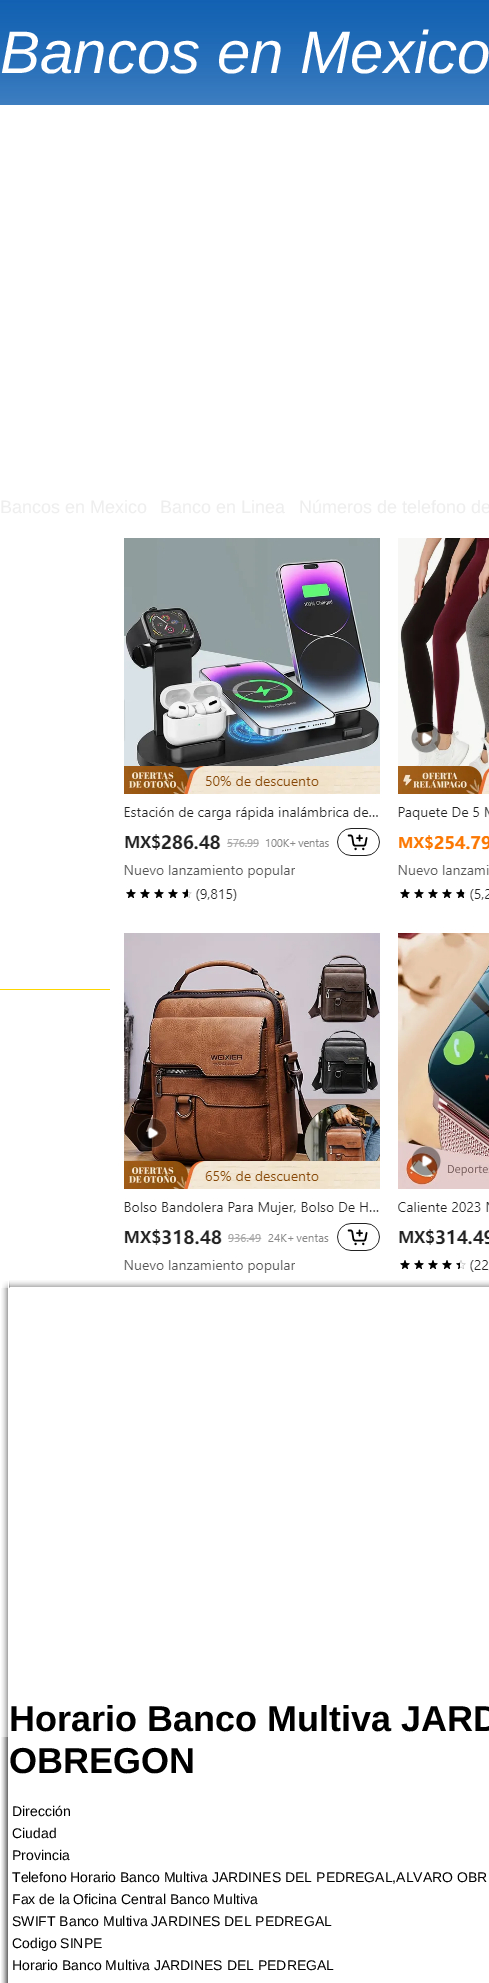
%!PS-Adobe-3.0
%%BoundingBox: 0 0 489 1983
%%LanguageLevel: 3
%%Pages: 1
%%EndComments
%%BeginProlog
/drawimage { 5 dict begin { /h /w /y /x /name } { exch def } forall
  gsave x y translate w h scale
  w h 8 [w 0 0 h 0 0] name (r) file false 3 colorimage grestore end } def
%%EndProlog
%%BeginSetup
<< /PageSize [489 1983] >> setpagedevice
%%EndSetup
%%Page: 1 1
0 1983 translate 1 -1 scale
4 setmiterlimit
1 setgray
0 0 489 1983 rectfill
(images/1.raw) 0 0 489 990 drawimage
0 105 489 387 rectfill
(images/2.raw) 110 538 379 735 drawimage
(images/3.raw) 2 1281 6 7 drawimage
(images/4.raw) 9 1280 480 7 drawimage
(images/5.raw) 9 1281 1 7 drawimage
(images/6.raw) 1 1288 7 695 drawimage
(images/7.raw) 1 1737 7 246 drawimage
/LiberationSans-Italic [60 0 0 -60 0 0] selectfont
0 73 moveto (Bancos en Mexico) show
/LiberationSans-Regular [18 0 0 -18 0 0] selectfont
0.933 setgray
0 513 moveto (Bancos en Mexico) show
160 513 moveto (Banco en Linea) show
299 513 moveto (Números de telefono de) show
/LiberationSans-Bold [36 0 0 -36 0 0] selectfont
0 setgray
9 1731 moveto (Horario Banco Multiva JARD) show
9 1773 moveto (OBREGON) show
/LiberationSans-Regular [14 0 0 -14 0 0] selectfont
12 1816 moveto (Dirección) show
12 1838 moveto (Ciudad) show
12 1860 moveto (Provincia) show
12 1882 moveto (Telefono Horario Banco Multiva JARDINES DEL PEDREGAL,ALVARO OBR) show
12 1904 moveto (Fax de la Oficina Central Banco Multiva) show
12 1926 moveto (SWIFT Banco Multiva JARDINES DEL PEDREGAL) show
12 1948 moveto (Codigo SINPE) show
12 1970 moveto (Horario Banco Multiva JARDINES DEL PEDREGAL) show
showpage
%%EOF
